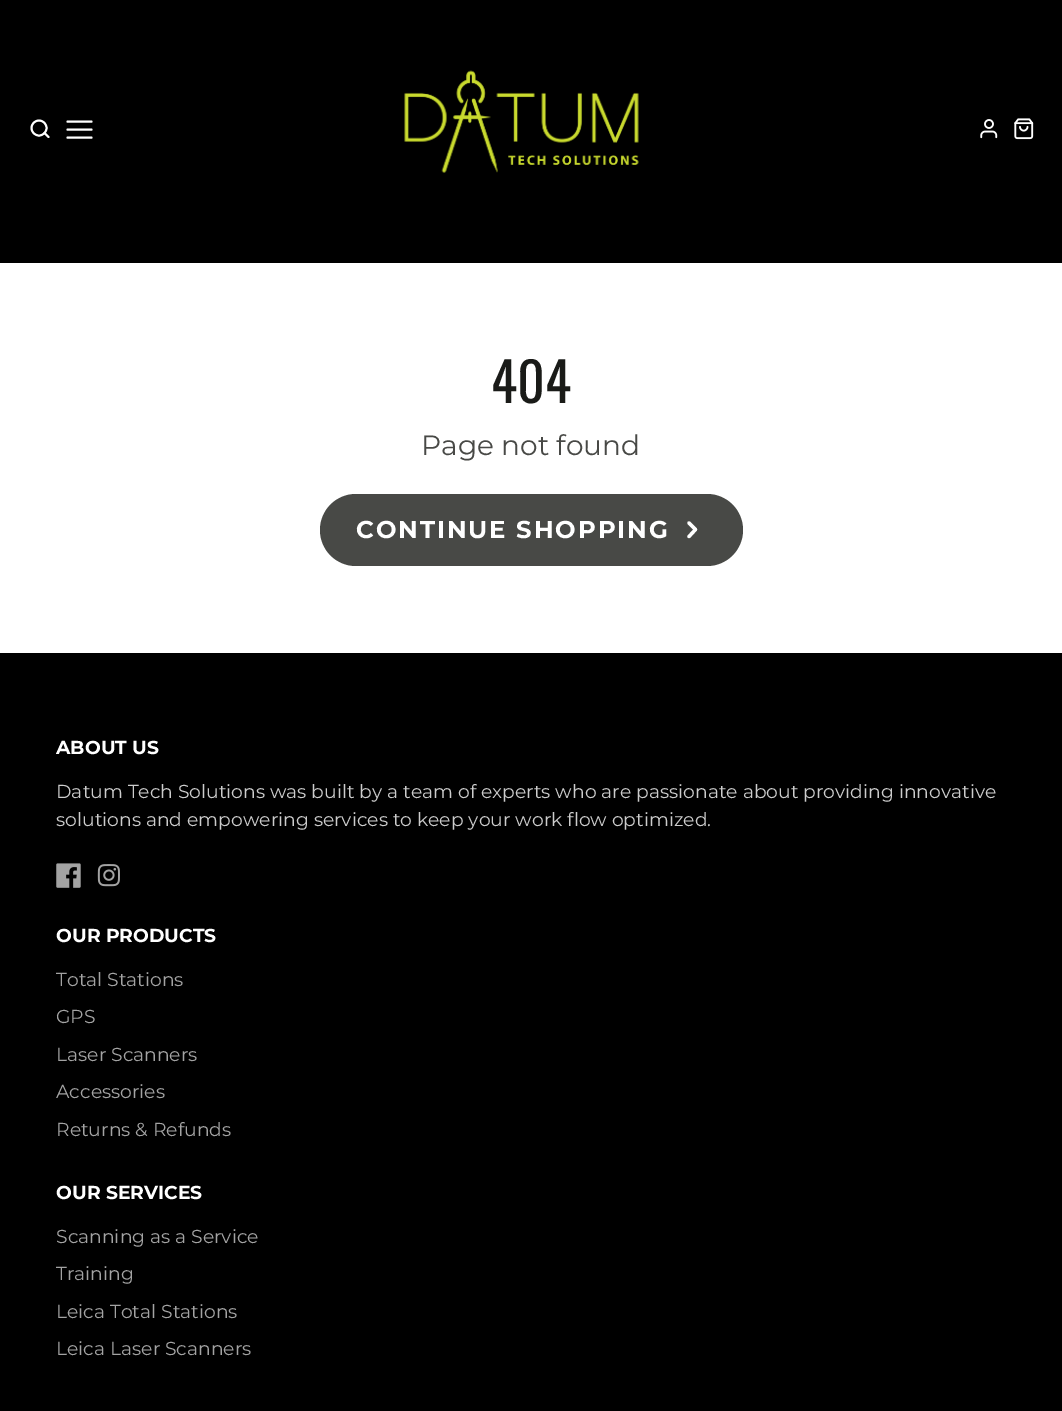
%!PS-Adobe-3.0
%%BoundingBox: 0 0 1062 1411
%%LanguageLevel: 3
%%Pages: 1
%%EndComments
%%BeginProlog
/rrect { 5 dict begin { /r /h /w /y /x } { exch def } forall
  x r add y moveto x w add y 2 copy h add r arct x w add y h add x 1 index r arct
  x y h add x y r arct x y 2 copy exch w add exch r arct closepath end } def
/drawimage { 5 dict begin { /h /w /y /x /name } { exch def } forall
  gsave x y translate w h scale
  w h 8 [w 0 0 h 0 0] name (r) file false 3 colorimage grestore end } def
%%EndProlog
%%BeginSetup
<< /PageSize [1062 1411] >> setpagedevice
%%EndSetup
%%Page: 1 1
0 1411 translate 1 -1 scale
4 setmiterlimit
1 setgray
0 0 1062 1411 rectfill
0 setgray
0 0 1062 263 rectfill
1 setgray
1.9 setlinewidth
newpath 39 128 7.5 0 360 arc closepath stroke
1 setlinecap
1 setlinejoin
newpath 48.5 137 moveto 44.5 133 lineto stroke
2 setlinewidth
newpath 67.5 129.5 moveto 91.5 129.5 lineto 67.5 121.5 moveto 91.5 121.5 lineto 67.5 137.5 moveto 91.5 137.5 lineto stroke
(images/1.raw) 404 70 235 103 drawimage
(images/2.raw) 980 119 18 20 drawimage
(images/3.raw) 1014 118 20 22 drawimage
0.282 0.286 0.275 setrgbcolor
320 494 423 72 36 rrect fill
1 setgray
3.3 setlinewidth
newpath 689 536.5 moveto 695.5 529.5 lineto 689 523 lineto stroke
0 setgray
0 653 1062 758 rectfill
(images/4.raw) 56 863 25 25 drawimage
(images/5.raw) 97 864 23 23 drawimage
/Oswald-Regular [54 0 0 -54 0 0] selectfont
0.102 0.106 0.094 setrgbcolor
491 403 moveto (404) show
/Montserrat-Regular [28 0 0 -28 0 0] selectfont
0.282 0.286 0.275 setrgbcolor
421 455 moveto (Page not found) show
/Montserrat-Bold [24.4 0 0 -24.4 0 0] selectfont
1 setgray
356 538 moveto 1.9 0 (CONTINUE SHOPPING) ashow
/Montserrat-Bold [18.75 0 0 -18.75 0 0] selectfont
56 754 moveto (ABOUT US) show
/Montserrat-Regular [18.75 0 0 -18.75 0 0] selectfont
0.8 setgray
56 798 moveto (Datum Tech Solutions was built by a team of experts who are passionate about providing innovative) show
56 826 moveto (solutions and empowering services to keep your work flow optimized.) show
/Montserrat-Bold [18.75 0 0 -18.75 0 0] selectfont
1 setgray
56 942 moveto (OUR PRODUCTS) show
/Montserrat-Regular [18.75 0 0 -18.75 0 0] selectfont
0.639 setgray
56 986 moveto (Total Stations) show
56 1023 moveto (GPS) show
56 1061 moveto (Laser Scanners) show
56 1098 moveto (Accessories) show
56 1136 moveto (Returns & Refunds) show
/Montserrat-Bold [18.75 0 0 -18.75 0 0] selectfont
1 setgray
56 1199 moveto (OUR SERVICES) show
/Montserrat-Regular [18.75 0 0 -18.75 0 0] selectfont
0.639 setgray
56 1243 moveto (Scanning as a Service) show
56 1280 moveto (Training) show
56 1318 moveto (Leica Total Stations) show
56 1355 moveto (Leica Laser Scanners) show
showpage
%%EOF
